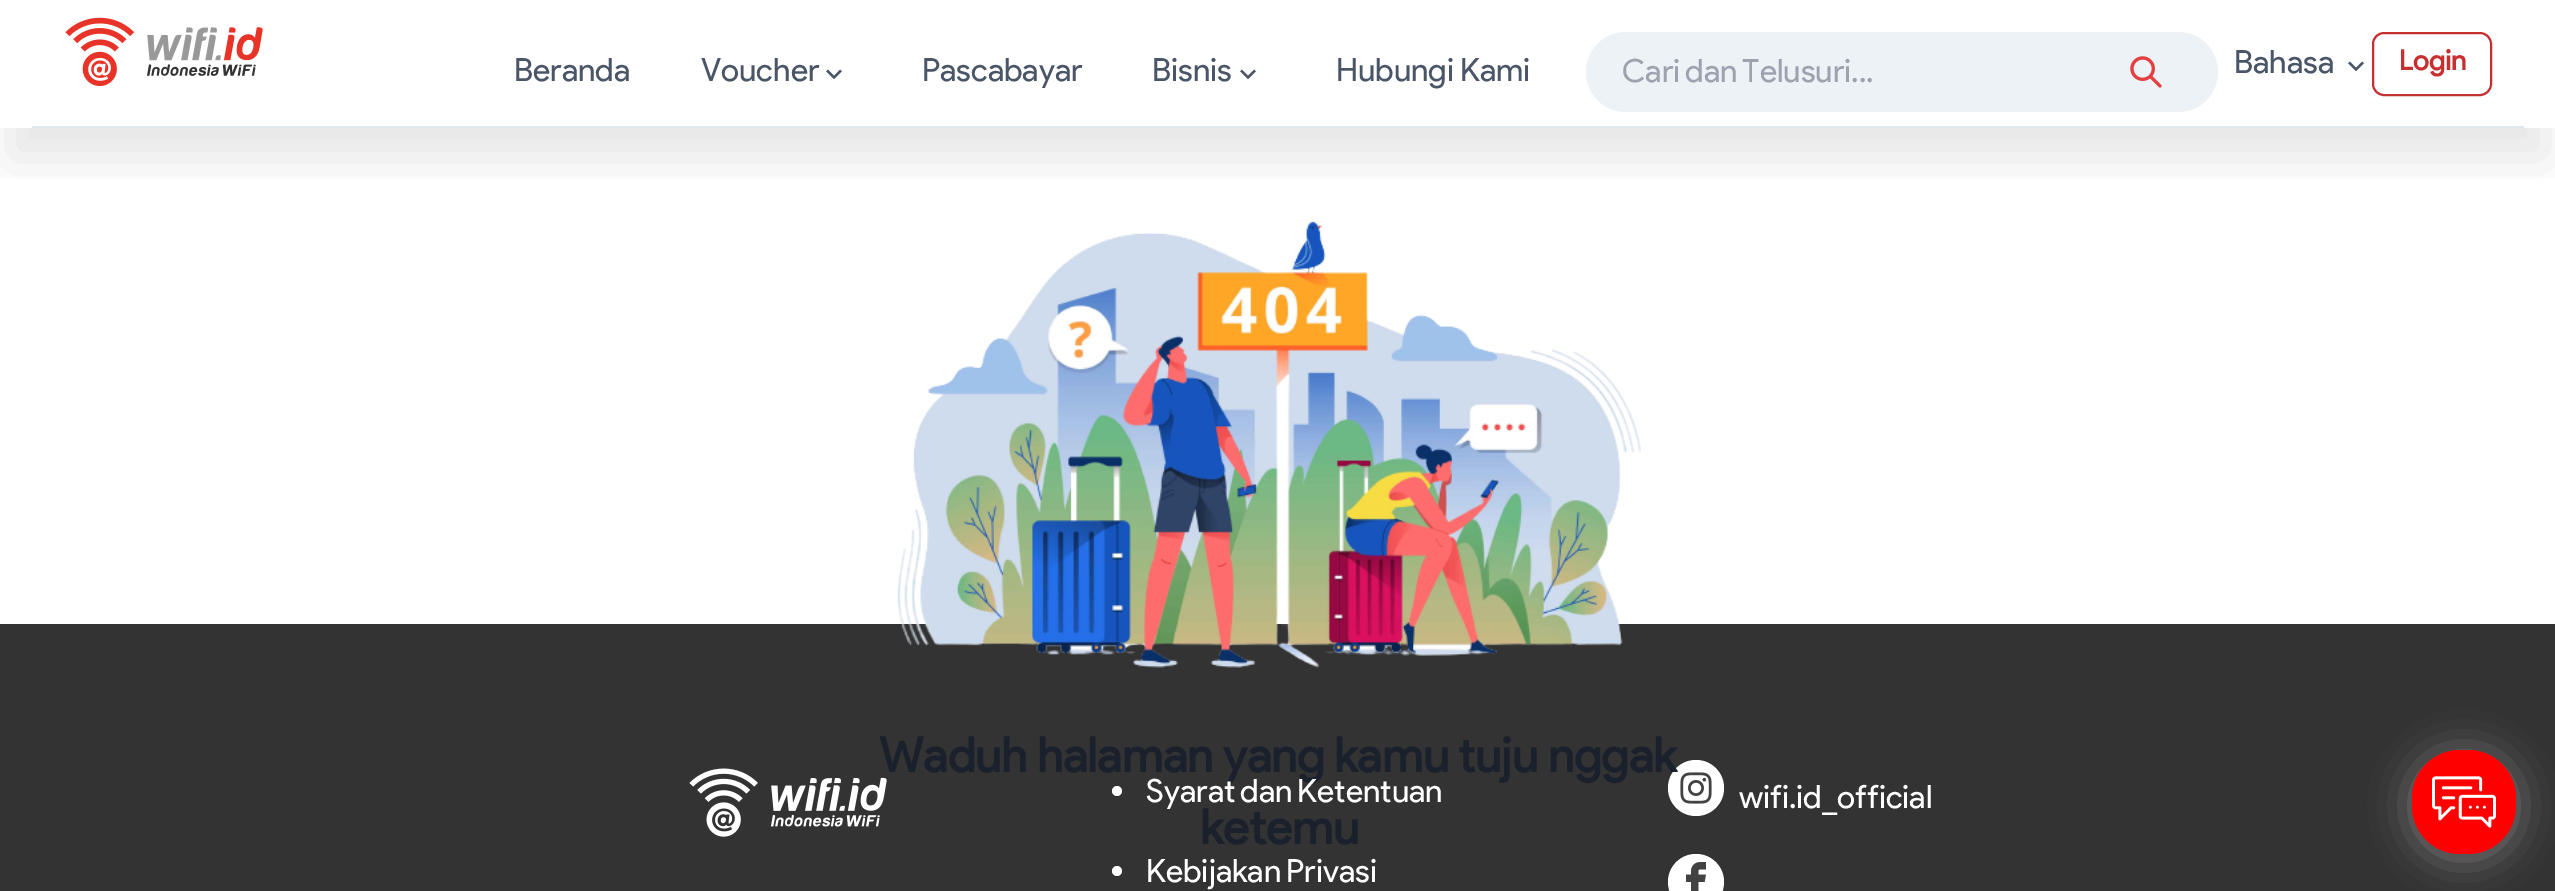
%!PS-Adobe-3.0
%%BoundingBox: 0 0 2555 891
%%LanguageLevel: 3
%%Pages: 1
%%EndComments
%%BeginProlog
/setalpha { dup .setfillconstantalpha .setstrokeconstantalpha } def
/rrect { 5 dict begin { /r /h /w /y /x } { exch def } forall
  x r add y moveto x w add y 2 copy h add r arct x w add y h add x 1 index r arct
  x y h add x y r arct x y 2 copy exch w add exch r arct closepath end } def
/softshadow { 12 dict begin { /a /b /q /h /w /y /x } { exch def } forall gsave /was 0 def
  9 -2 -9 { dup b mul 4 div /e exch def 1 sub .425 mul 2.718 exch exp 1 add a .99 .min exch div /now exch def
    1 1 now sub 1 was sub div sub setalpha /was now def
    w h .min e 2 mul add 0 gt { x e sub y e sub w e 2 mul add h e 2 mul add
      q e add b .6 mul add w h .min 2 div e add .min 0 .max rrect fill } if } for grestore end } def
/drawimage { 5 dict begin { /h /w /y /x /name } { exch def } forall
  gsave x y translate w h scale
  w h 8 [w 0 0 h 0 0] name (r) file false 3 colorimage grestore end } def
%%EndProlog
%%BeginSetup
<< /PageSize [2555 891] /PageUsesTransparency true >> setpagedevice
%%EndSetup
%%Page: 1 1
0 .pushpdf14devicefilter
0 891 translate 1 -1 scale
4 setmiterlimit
1 setgray
0 0 2555 891 rectfill
0.2 setgray
0 624 2555 267 rectfill
(images/4.raw) 897 221 744 447 drawimage
gsave
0 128 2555 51 rectclip
0 setgray
10 50 2536 108 0 25 0.1 softshadow
grestore
0.886 0.91 0.941 setrgbcolor
32 126 2492 2 rectfill
(images/1.raw) 65 17 198 69 drawimage
(images/2.raw) 826 69 16 11 drawimage
(images/2.raw) 1240 69 16 11 drawimage
0.929 0.949 0.969 setrgbcolor
1586 32 632 80 40 rrect fill
(images/3.raw) 2130 56 32 32 drawimage
(images/2.raw) 2348 61 16 11 drawimage
0.773 0.188 0.188 setrgbcolor
2 setlinewidth
2373 33 118 62 11 rrect stroke
(images/5.raw) 689 768 198 69 drawimage
1 setgray
newpath 1117 791 5 0 360 arc closepath fill
newpath 1117 871 5 0 360 arc closepath fill
newpath 1696 788 28 0 360 arc closepath fill
(images/6.raw) 1680 772 32 32 drawimage
newpath 1696 882 28 0 360 arc closepath fill
(images/7.raw) 1686 862 20 29 drawimage
1 0.945 0.941 setrgbcolor
2412 754 104 104 48 20 0.35 softshadow
1 0 0 setrgbcolor
2412 750 104 104 48 rrect fill
(images/8.raw) 2432 776 64 52 drawimage
/ProductSans-Regular [32 0 0 -32 0 0] selectfont
0.29 0.333 0.408 setrgbcolor
514 81 moveto (Beranda) show
701 81 moveto (Voucher) show
922 81 moveto (Pascabayar) show
1152 81 moveto (Bisnis) show
1336 81 moveto -1 0 32 (Hubungi Kami) widthshow
0.612 0.639 0.686 setrgbcolor
1622 82 moveto -2 0 32 (Cari dan Telusuri...) widthshow
0.29 0.333 0.408 setrgbcolor
2234 73 moveto (Bahasa) show
/ProductSans-Bold [28 0 0 -28 0 0] selectfont
0.773 0.188 0.188 setrgbcolor
2399 70 moveto (Login) show
/ProductSans-Bold [48 0 0 -48 0 0] selectfont
0.102 0.125 0.173 setrgbcolor
879 772 moveto -1 0 32 (Waduh halaman yang kamu tuju nggak) widthshow
1200 844 moveto (ketemu) show
/ProductSans-Regular [32 0 0 -32 0 0] selectfont
1 setgray
1146 802 moveto -2 0 32 (Syarat dan Ketentuan) widthshow
1146 882 moveto -2 0 32 (Kebijakan Privasi) widthshow
1739 808 moveto (wifi.id_official) show
.poppdf14devicefilter showpage
%%EOF
